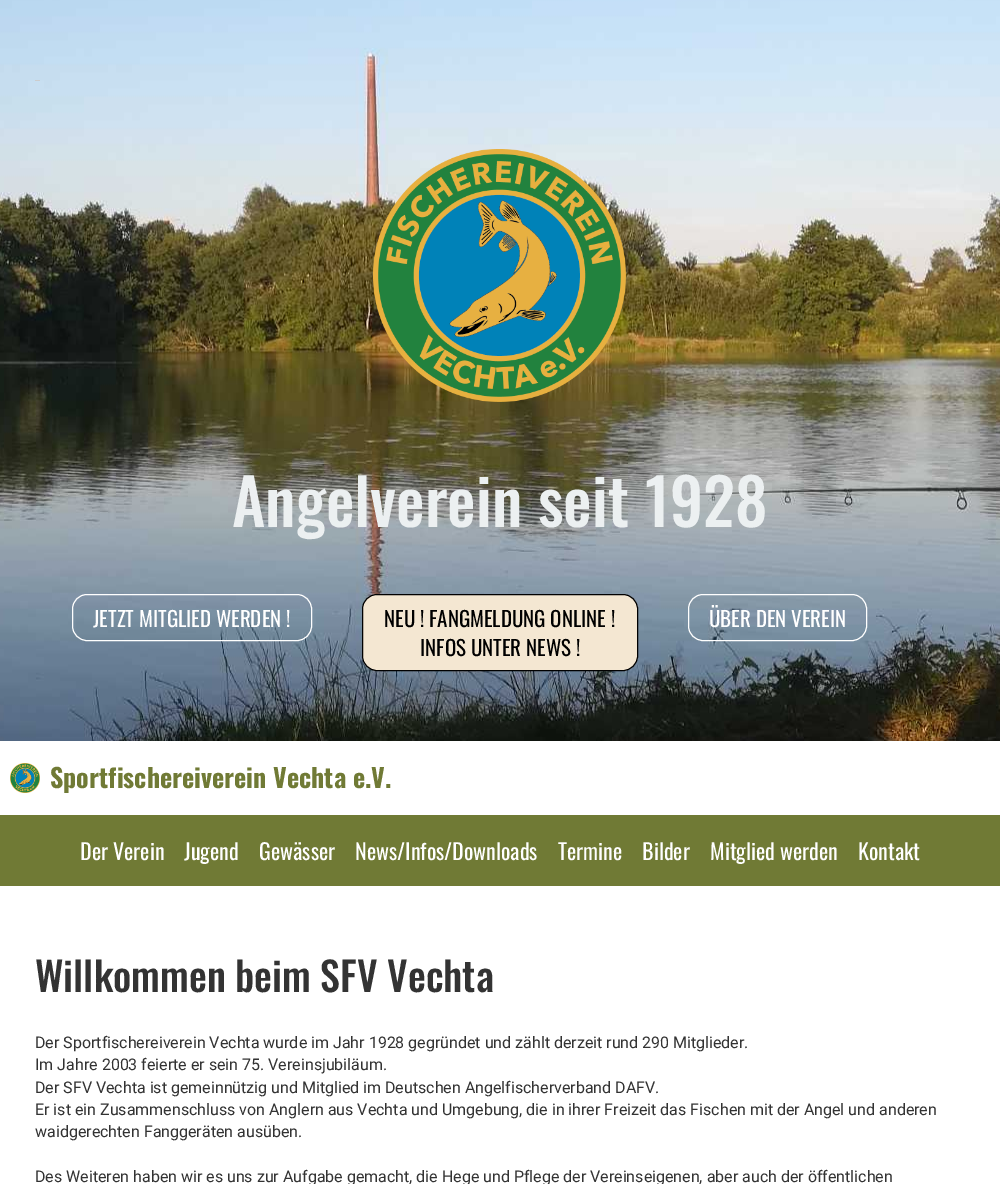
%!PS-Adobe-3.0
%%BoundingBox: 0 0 1000 1184
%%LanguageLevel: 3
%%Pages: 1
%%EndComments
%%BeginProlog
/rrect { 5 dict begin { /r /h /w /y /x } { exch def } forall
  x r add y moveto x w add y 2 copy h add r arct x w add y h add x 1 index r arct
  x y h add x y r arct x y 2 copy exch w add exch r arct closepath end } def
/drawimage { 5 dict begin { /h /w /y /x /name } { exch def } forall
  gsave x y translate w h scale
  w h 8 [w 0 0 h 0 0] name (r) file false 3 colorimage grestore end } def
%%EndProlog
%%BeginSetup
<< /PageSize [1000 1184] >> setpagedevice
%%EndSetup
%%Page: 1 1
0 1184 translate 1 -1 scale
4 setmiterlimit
1 setgray
0 0 1000 1184 rectfill
(images/1.raw) 0 0 1000 741 drawimage
0.8 setgray
35 80 5 1 rectfill
(images/2.raw) 373 149 253 253 drawimage
1 setgray
72.5 594.5 239 46 14.5 rrect stroke
0.957 0.906 0.824 setrgbcolor
362.5 594.5 275 76 14.5 rrect gsave fill grestore
0 setgray
stroke
1 setgray
688.5 594.5 178 46 14.5 rrect stroke
(images/3.raw) 10 763 30 30 drawimage
0.439 0.478 0.208 setrgbcolor
0 815 1000 71 rectfill
/Oswald-Medium [64 0 0 -64 0 0] selectfont
0.925 0.941 0.945 setrgbcolor
232 527 moveto (Angelverein seit 1928) show
/Oswald-Regular [21 0 0 -21 0 0] selectfont
1 setgray
93 627 moveto (JETZT MITGLIED WERDEN !) show
0 setgray
384 627 moveto (NEU ! FANGMELDUNG ONLINE !) show
420 656 moveto (INFOS UNTER NEWS !) show
1 setgray
709 627 moveto (ÜBER DEN VEREIN) show
/Oswald-Bold [26 0 0 -26 0 0] selectfont
0.439 0.478 0.208 setrgbcolor
50 788 moveto (Sportfischereiverein Vechta e.V.) show
/Oswald-Regular [22 0 0 -22 0 0] selectfont
1 setgray
80 860 moveto (Der Verein) show
184 860 moveto (Jugend) show
259 860 moveto (Gewässer) show
355 860 moveto (News/Infos/Downloads) show
558 860 moveto (Termine) show
642 860 moveto (Bilder) show
710 860 moveto (Mitglied werden) show
858 860 moveto (Kontakt) show
/Oswald-Medium [40 0 0 -40 0 0] selectfont
0.2 setgray
35 992 moveto (Willkommen beim SFV Vechta) show
/Roboto-Regular [16 0 0 -16 0 0] selectfont
35 1048 moveto (Der Sportfischereiverein Vechta wurde im Jahr 1928 gegründet und zählt derzeit rund 290 Mitglieder.) show
35 1070 moveto (Im Jahre 2003 feierte er sein 75. Vereinsjubiläum.) show
35 1093 moveto (Der SFV Vechta ist gemeinnützig und Mitglied im Deutschen Angelfischerverband DAFV.) show
35 1115 moveto (Er ist ein Zusammenschluss von Anglern aus Vechta und Umgebung, die in ihrer Freizeit das Fischen mit der Angel und anderen) show
35 1137 moveto (waidgerechten Fanggeräten ausüben.) show
35 1182 moveto (Des Weiteren haben wir es uns zur Aufgabe gemacht, die Hege und Pflege der Vereinseigenen, aber auch der öffentlichen) show
showpage
%%EOF
